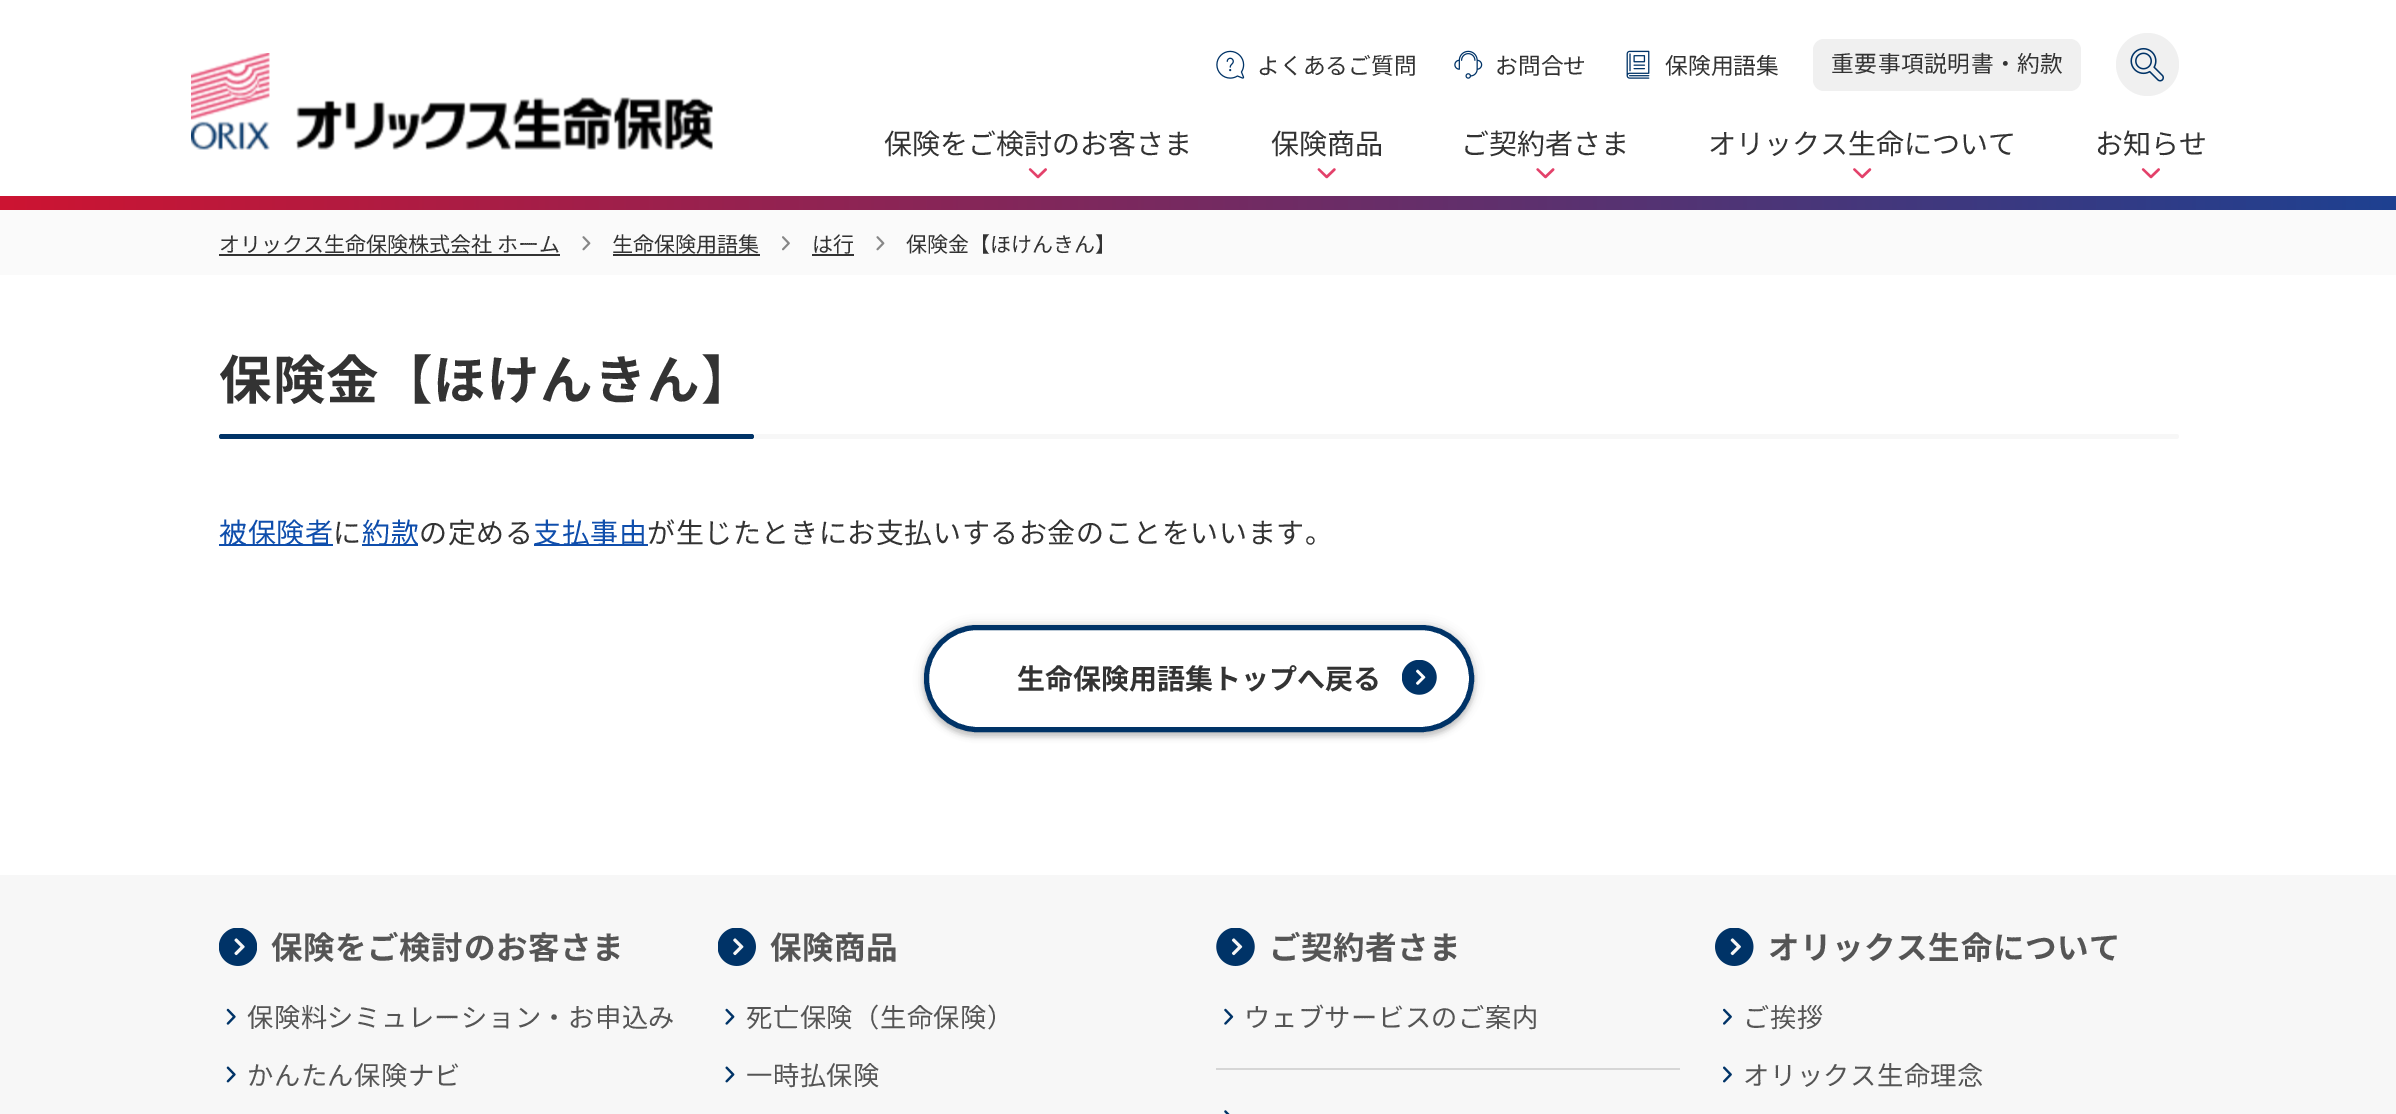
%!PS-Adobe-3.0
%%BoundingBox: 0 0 2396 1114
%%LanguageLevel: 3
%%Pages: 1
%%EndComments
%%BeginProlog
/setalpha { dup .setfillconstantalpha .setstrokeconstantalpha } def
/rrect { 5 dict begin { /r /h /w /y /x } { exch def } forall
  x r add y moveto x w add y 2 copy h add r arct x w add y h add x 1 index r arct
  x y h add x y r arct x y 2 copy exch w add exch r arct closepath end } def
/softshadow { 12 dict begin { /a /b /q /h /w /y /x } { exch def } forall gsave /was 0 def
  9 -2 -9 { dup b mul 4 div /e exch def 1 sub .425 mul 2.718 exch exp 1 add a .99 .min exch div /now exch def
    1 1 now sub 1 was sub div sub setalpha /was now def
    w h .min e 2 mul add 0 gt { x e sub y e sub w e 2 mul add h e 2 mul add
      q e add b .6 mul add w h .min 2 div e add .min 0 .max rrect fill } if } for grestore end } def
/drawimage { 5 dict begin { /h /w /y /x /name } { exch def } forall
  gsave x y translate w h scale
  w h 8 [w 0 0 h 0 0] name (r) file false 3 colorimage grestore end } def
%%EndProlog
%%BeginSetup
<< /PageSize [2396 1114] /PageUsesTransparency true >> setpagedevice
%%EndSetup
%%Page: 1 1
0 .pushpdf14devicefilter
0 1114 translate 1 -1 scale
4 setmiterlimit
1 setgray
0 0 2396 1114 rectfill
(images/1.raw) 191 53 522 97 drawimage
(images/2.raw) 1216 50 29 29 drawimage
(images/3.raw) 1454 50 29 29 drawimage
(images/4.raw) 1626 50 24 29 drawimage
0.941 setgray
1813 39 268 52 11 rrect fill
newpath 2147.5 64.5 31.5 0 360 arc closepath fill
(images/5.raw) 2130 47 34 35 drawimage
(images/6.raw) 1028 168 19 11 drawimage
(images/7.raw) 1317 168 19 11 drawimage
(images/8.raw) 1536 168 19 11 drawimage
(images/9.raw) 1853 168 19 11 drawimage
(images/6.raw) 2141 168 19 11 drawimage
gsave newpath 0 196 moveto 2396 196 lineto 2396 210 lineto 0 210 lineto closepath clip newpath
<< /ShadingType 2 /ColorSpace /DeviceRGB /Coords [0 203 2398 203] /Extend [true true] /Function << /FunctionType 2 /Domain [0 1] /C0 [0.804 0.078 0.196] /C1 [0.118 0.255 0.569] /N 1 >> >> shfill grestore
0.98 setgray
0 210 2396 65 rectfill
0.2 setgray
219 254 341 2 rectfill
(images/10.raw) 582 236 9 15 drawimage
613 254 147 2 rectfill
(images/11.raw) 782 236 8 15 drawimage
812 254 42 2 rectfill
(images/10.raw) 876 236 9 15 drawimage
0 0.2 0.404 setrgbcolor
219 434 535 5 2.5 rrect fill
0.969 setgray
754 434 1425 5 2.5 rrect fill
0.059 0.306 0.675 setrgbcolor
219 544 114 2 rectfill
362 544 56 2 rectfill
534 544 114 2 rectfill
0 setgray
924 625 550 107 53 5 0.2 softshadow
924 630 550 107 53 2.5 0.15 softshadow
1 setgray
926.5 627.5 545 102 50.5 rrect gsave fill grestore
0 0.2 0.404 setrgbcolor
5 setlinewidth
stroke
(images/12.raw) 1402 660 35 35 drawimage
0.969 setgray
0 875 2396 239 rectfill
(images/13.raw) 219 928 38 38 drawimage
(images/14.raw) 226 1008 10 17 drawimage
(images/15.raw) 226 1066 10 17 drawimage
(images/16.raw) 718 928 38 38 drawimage
(images/17.raw) 725 1008 10 17 drawimage
(images/18.raw) 725 1066 10 17 drawimage
(images/19.raw) 1216 928 39 38 drawimage
(images/20.raw) 1224 1008 10 17 drawimage
0.839 setgray
1216 1068 464 2 rectfill
(images/21.raw) 1224 1110 6 4 drawimage
(images/22.raw) 1715 928 39 38 drawimage
(images/23.raw) 1723 1008 9 17 drawimage
(images/24.raw) 1723 1066 9 17 drawimage
/NotoSansJP-Regular [22.75 0 0 -22.75 0 0] selectfont
0.2 setgray
1257 74 moveto (よくあるご質問) show
1495 74 moveto (お問合せ) show
1665 74 moveto (保険用語集) show
1831 72 moveto 0.5 0 (重要事項説明書・約款) ashow
/NotoSansJP-Regular [28 0 0 -28 0 0] selectfont
884 154 moveto (保険をご検討のお客さま) show
1271 154 moveto (保険商品) show
1461 154 moveto (ご契約者さま) show
1708 154 moveto (オリックス生命について) show
2095 154 moveto (お知らせ) show
/NotoSansJP-Regular [21 0 0 -21 0 0] selectfont
219 252 moveto (オリックス生命保険株式会社 ホーム) show
612 252 moveto (生命保険用語集) show
812 252 moveto (は行) show
906 252 moveto (保険金【ほけんきん】) show
/NotoSansJP-Bold [52.5 0 0 -52.5 0 0] selectfont
219 399 moveto 1 0 (保険金【ほけんきん】) ashow
/NotoSansJP-Regular [28 0 0 -28 0 0] selectfont
0.059 0.306 0.675 setrgbcolor
219 543 moveto 0.6 0 (被保険者) ashow
0.2 setgray
333 543 moveto 0.6 0 (に) ashow
0.059 0.306 0.675 setrgbcolor
362 543 moveto 0.6 0 (約款) ashow
0.2 setgray
419 543 moveto 0.6 0 (の定める) ashow
0.059 0.306 0.675 setrgbcolor
533 543 moveto 0.6 0 (支払事由) ashow
0.2 setgray
647 543 moveto 0.6 0 (が生じたときにお支払いするお金のことをいいます。) ashow
/NotoSansJP-Bold [28 0 0 -28 0 0] selectfont
1017 689 moveto (生命保険用語集トップへ戻る) show
/NotoSansJP-Bold [31.5 0 0 -31.5 0 0] selectfont
0.333 setgray
271 959 moveto 0.6 0 (保険をご検討のお客さま) ashow
/NotoSansJP-Regular [26.25 0 0 -26.25 0 0] selectfont
247 1027 moveto 0.5 0 (保険料シミュレーション・お申込み) ashow
247 1085 moveto 0.5 0 (かんたん保険ナビ) ashow
/NotoSansJP-Bold [31.5 0 0 -31.5 0 0] selectfont
770 959 moveto 0.6 0 (保険商品) ashow
/NotoSansJP-Regular [26.25 0 0 -26.25 0 0] selectfont
746 1027 moveto 0.5 0 (死亡保険（生命保険）) ashow
746 1085 moveto 0.5 0 (一時払保険) ashow
/NotoSansJP-Bold [31.5 0 0 -31.5 0 0] selectfont
1269 959 moveto 0.6 0 (ご契約者さま) ashow
/NotoSansJP-Regular [26.25 0 0 -26.25 0 0] selectfont
1244 1027 moveto 0.5 0 (ウェブサービスのご案内) ashow
/NotoSansJP-Bold [31.5 0 0 -31.5 0 0] selectfont
1768 959 moveto 0.6 0 (オリックス生命について) ashow
/NotoSansJP-Regular [26.25 0 0 -26.25 0 0] selectfont
1743 1027 moveto 0.5 0 (ご挨拶) ashow
1743 1085 moveto 0.5 0 (オリックス生命理念) ashow
.poppdf14devicefilter showpage
%%EOF
